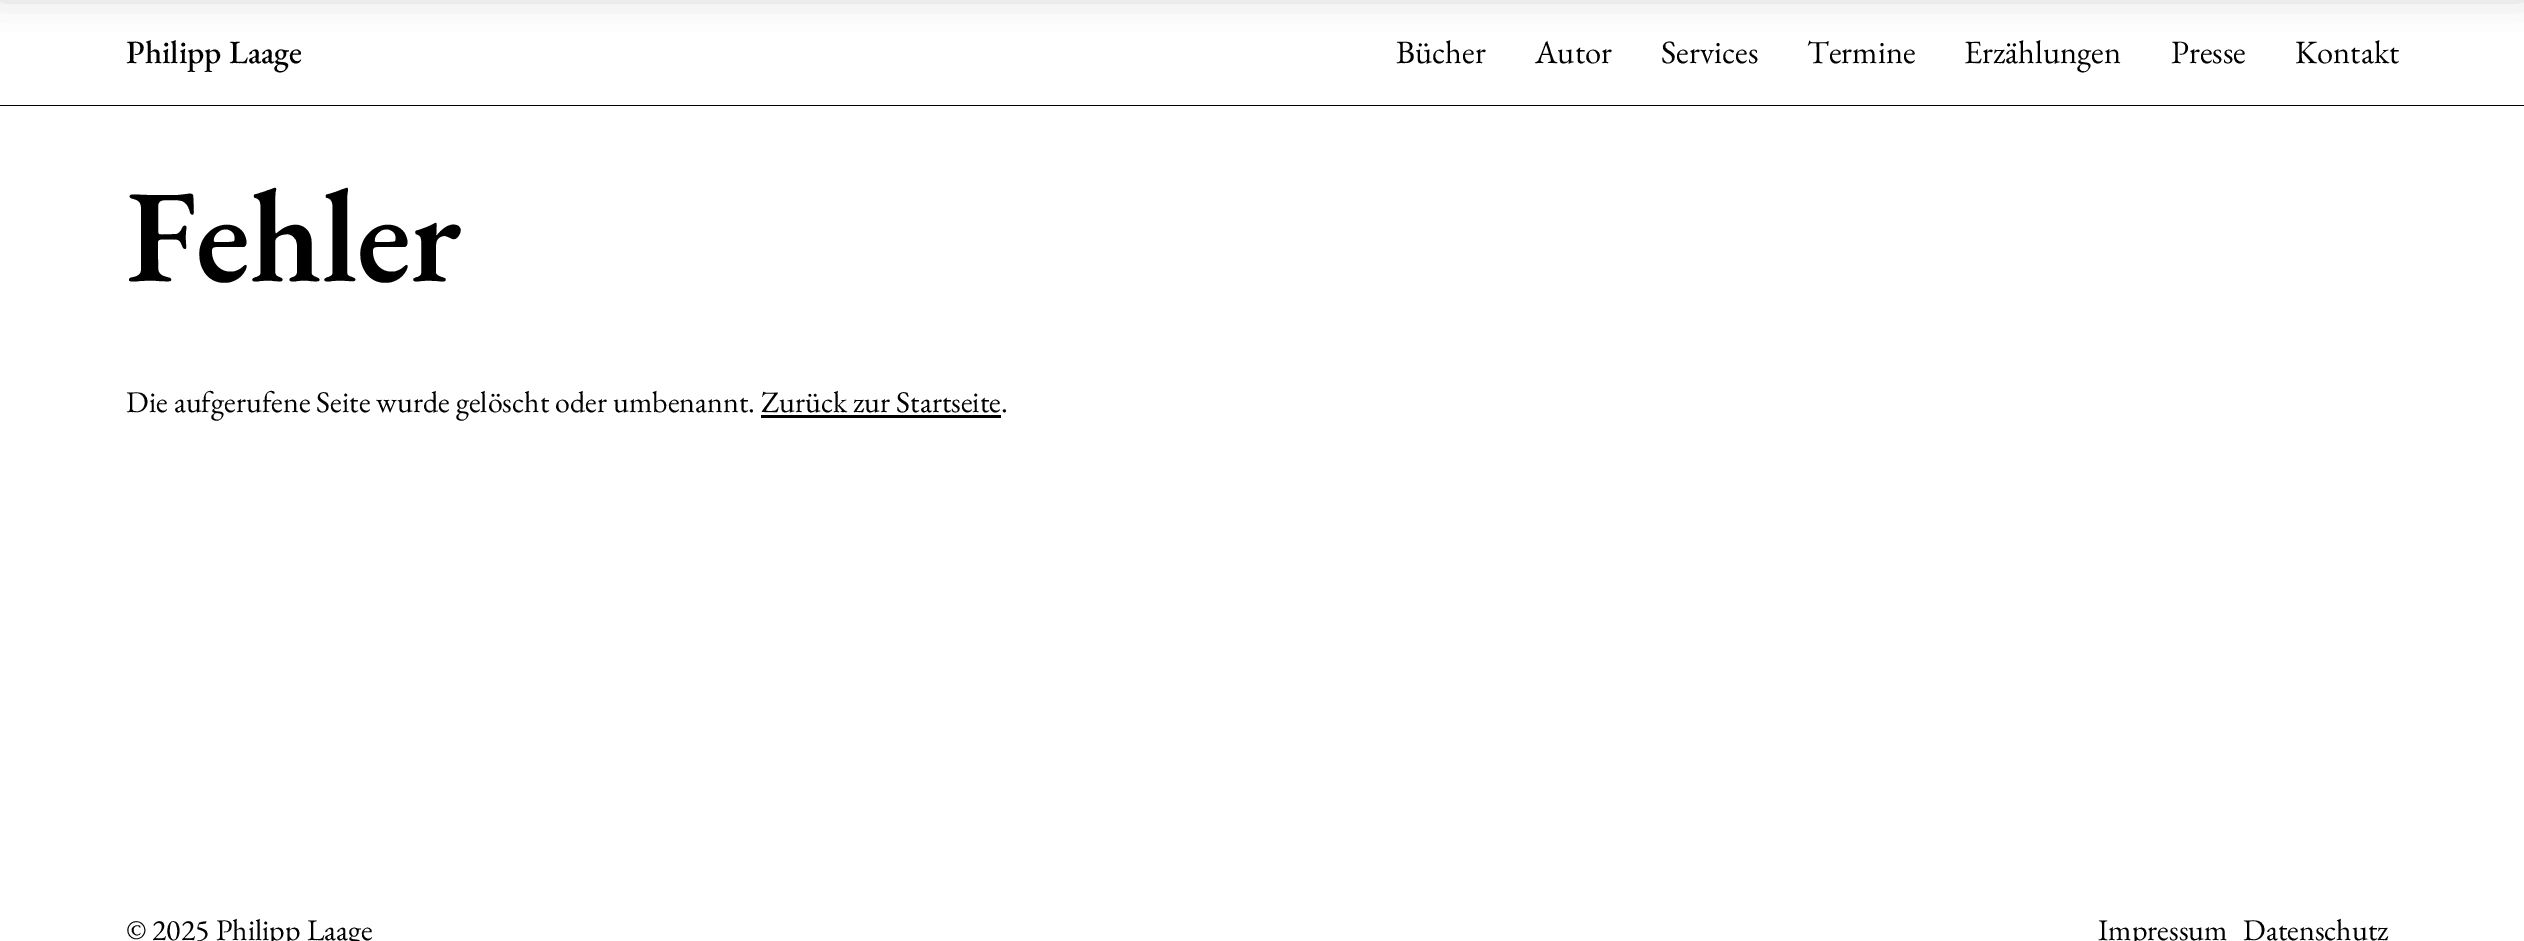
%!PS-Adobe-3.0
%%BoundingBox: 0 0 2524 941
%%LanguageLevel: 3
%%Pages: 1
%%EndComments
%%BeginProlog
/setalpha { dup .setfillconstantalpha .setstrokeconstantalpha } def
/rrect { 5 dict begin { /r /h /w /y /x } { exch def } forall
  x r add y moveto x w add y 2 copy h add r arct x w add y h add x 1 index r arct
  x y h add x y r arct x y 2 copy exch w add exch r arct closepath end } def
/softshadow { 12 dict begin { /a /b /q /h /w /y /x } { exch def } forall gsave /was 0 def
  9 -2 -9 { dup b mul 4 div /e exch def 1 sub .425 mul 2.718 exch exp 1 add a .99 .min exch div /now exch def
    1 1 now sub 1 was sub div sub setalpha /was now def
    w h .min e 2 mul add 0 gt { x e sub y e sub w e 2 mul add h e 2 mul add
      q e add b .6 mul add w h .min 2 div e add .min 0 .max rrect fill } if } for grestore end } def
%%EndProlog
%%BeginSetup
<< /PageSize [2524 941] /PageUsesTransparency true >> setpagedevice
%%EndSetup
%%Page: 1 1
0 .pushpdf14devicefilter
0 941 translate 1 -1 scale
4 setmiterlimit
1 setgray
0 0 2524 941 rectfill
0 setgray
0 105 2524 1 rectfill
0 -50 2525 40 0 19 0.25 softshadow
761 415 240 3 rectfill
/EBGaramond-Medium [32.5 0 0 -32.5 0 0] selectfont
126 63 moveto (Philipp Laage) show
/EBGaramond-Regular [32.5 0 0 -32.5 0 0] selectfont
1396 63 moveto (Bücher) show
1535 63 moveto (Autor) show
1661 63 moveto (Services) show
1807 63 moveto (Termine) show
1964 63 moveto (Erzählungen) show
2171 63 moveto (Presse) show
2295 63 moveto (Kontakt) show
/EBGaramond-SemiBold [132.5 0 0 -132.5 0 0] selectfont
126 281 moveto -0.5 0 (Fehler) ashow
/EBGaramond-Regular [30 0 0 -30 0 0] selectfont
126 412 moveto (Die aufgerufene Seite wurde gelöscht oder umbenannt. Zurück zur Startseite.) show
126 940 moveto (© 2025 Philipp Laage) show
2098 940 moveto (Impressum) show
2243 940 moveto (Datenschutz) show
.poppdf14devicefilter showpage
%%EOF
